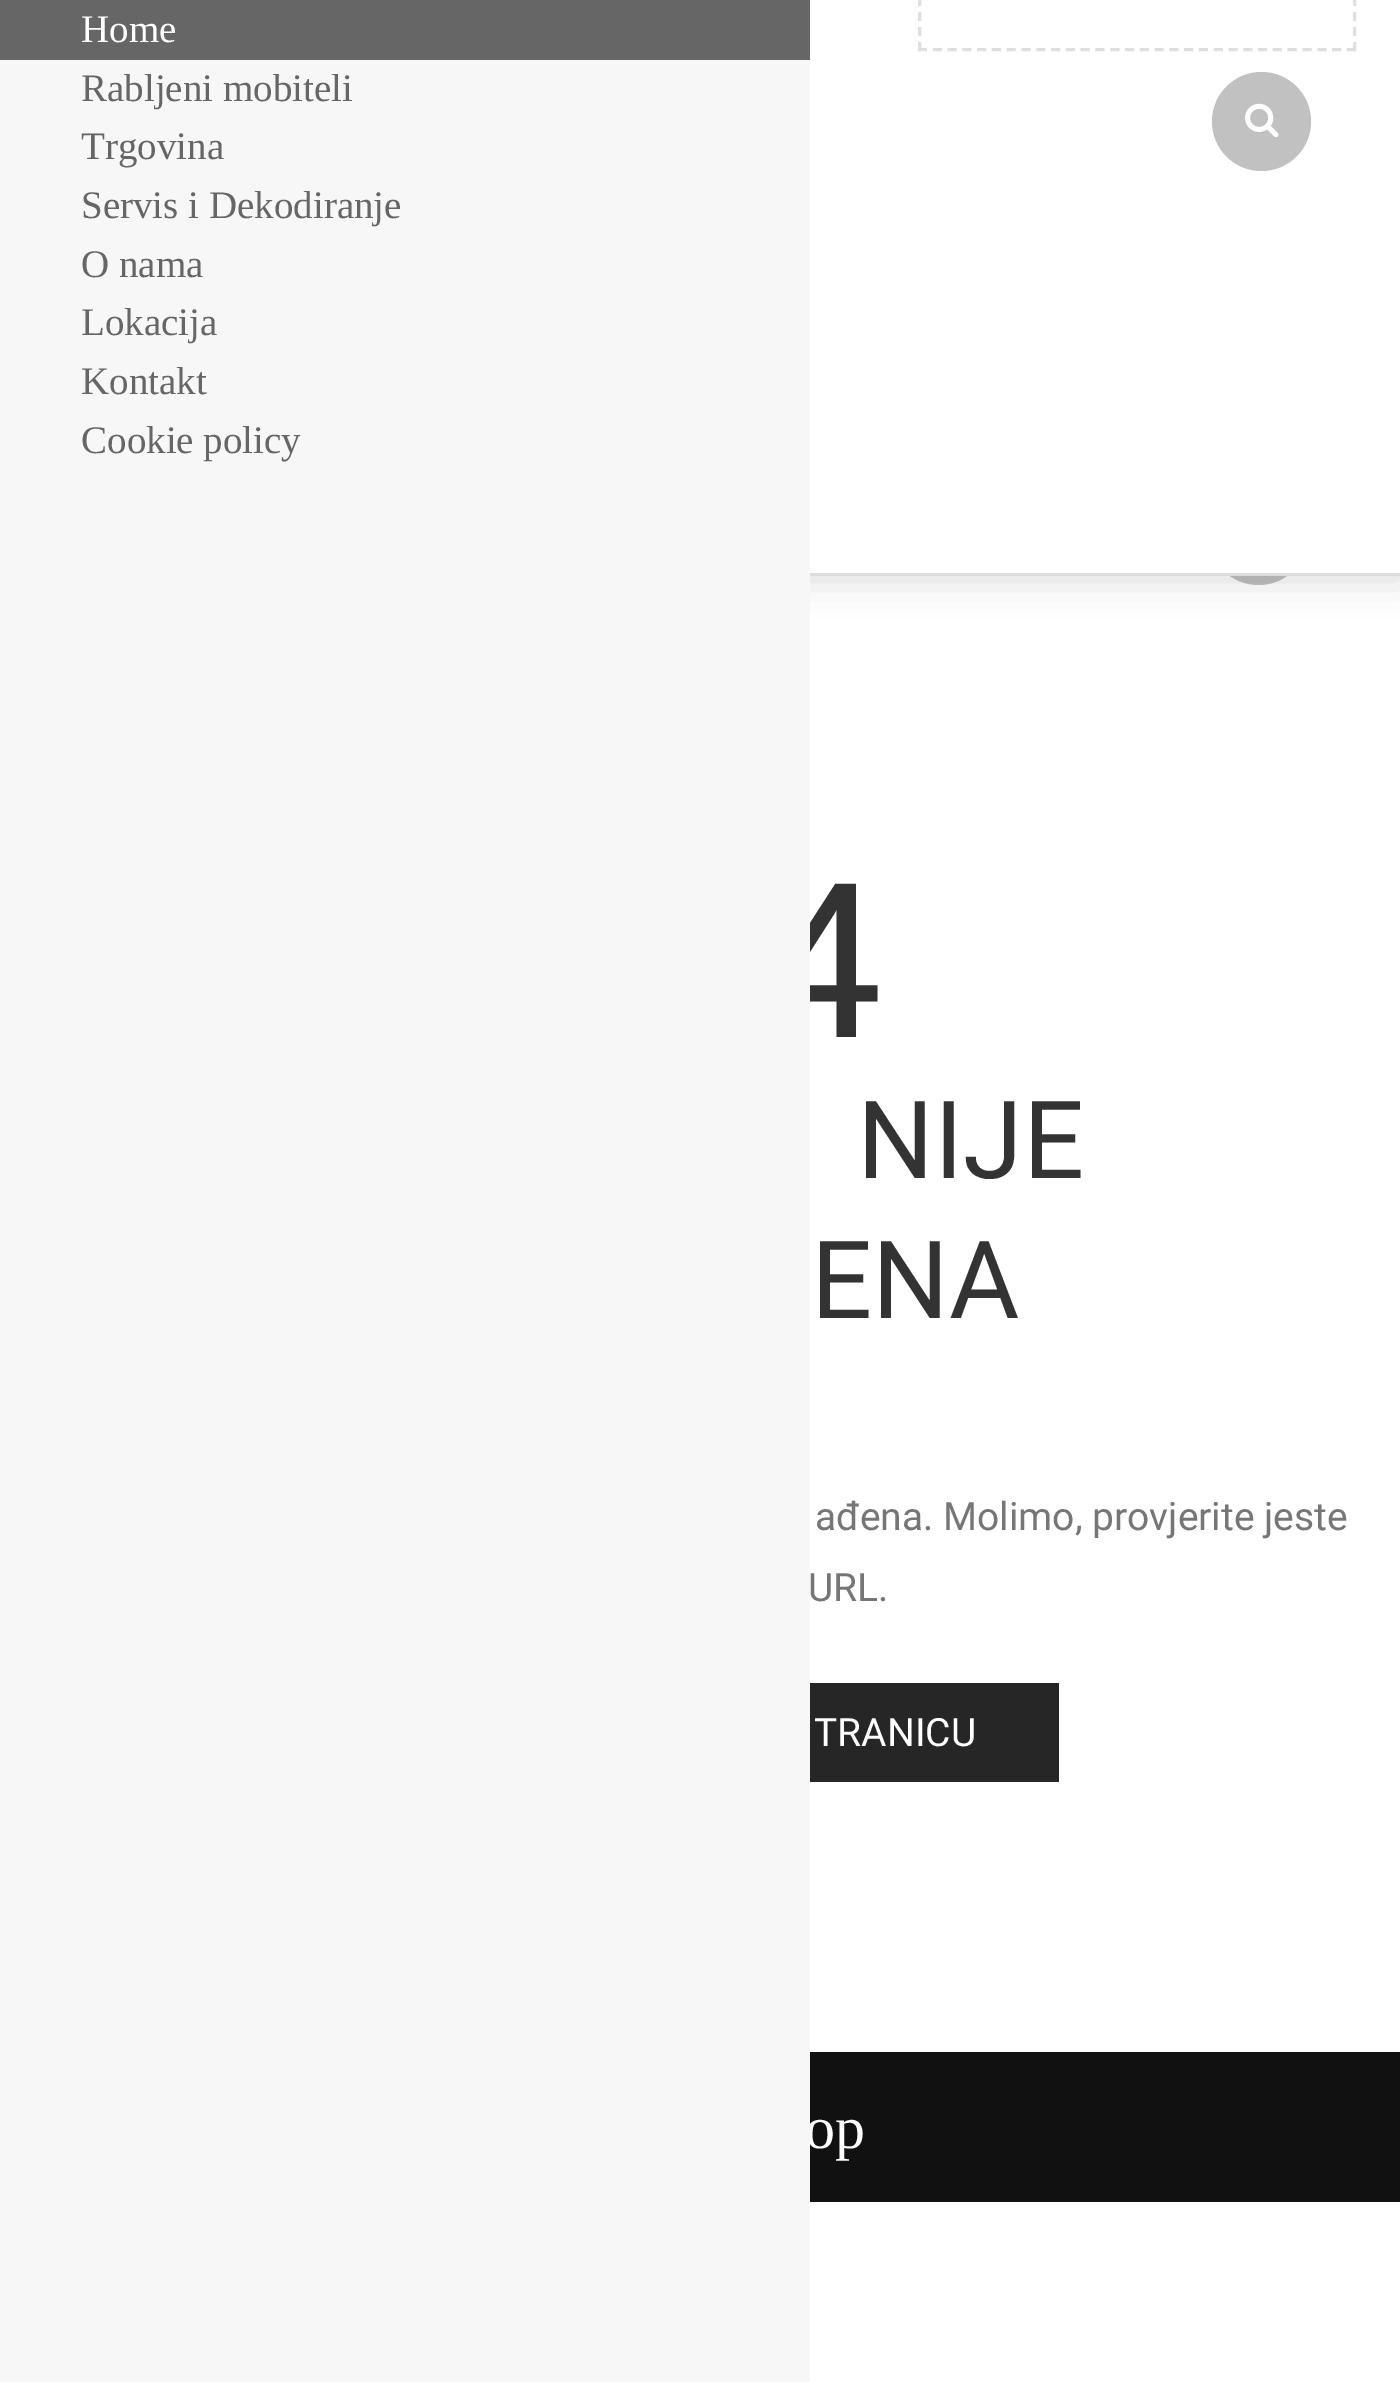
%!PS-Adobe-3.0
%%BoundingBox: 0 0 1400 2382
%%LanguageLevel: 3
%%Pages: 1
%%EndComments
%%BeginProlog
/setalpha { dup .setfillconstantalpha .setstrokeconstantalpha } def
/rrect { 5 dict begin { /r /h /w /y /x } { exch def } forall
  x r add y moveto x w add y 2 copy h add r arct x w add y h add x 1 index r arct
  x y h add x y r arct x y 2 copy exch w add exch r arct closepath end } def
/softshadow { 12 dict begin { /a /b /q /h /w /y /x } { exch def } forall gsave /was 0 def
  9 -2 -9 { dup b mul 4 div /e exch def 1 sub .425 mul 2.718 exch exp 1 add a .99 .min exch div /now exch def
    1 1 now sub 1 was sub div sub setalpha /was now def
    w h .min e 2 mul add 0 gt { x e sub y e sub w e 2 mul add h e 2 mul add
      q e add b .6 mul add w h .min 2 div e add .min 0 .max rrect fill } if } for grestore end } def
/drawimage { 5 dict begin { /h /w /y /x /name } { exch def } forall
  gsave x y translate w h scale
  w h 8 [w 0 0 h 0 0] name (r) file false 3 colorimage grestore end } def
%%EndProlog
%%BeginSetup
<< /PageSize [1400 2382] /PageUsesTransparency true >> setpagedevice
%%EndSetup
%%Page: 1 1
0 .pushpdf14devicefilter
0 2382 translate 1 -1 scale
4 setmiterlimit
1 setgray
0 0 1400 2382 rectfill
0.757 setgray
newpath 1258.5 535.5 49.5 0 360 arc closepath fill
0 setgray
0 -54 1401 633 0 18 0.15 softshadow
0.4 setgray
0 0 810 60 rectfill
1 setgray
810 0 590 573 rectfill
0.867 setgray
810 573 590 3 rectfill
0.875 setgray
3 setlinewidth
[9 6] 0 setdash
newpath 1354.5 -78 moveto 1354.5 51 lineto stroke
[9 5.79] 0 setdash
newpath 918 49.5 moveto 1356 49.5 lineto stroke
[9 6] 0 setdash
newpath 919.5 -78 moveto 919.5 51 lineto stroke
0.757 setgray
newpath 1261.5 121.5 49.5 0 360 arc closepath fill
(images/1.raw) 1245 103 34 35 drawimage
0.149 setgray
810 1683 249 99 rectfill
0.067 setgray
810 2052 590 150 rectfill
/LiberationSerif-Regular [39 0 0 -39 0 0] selectfont
1 setgray
81 42 moveto (Home) show
/Roboto-Regular [216 0 0 -216 0 0] selectfont
0.2 setgray
761 1037 moveto (4) show
/Roboto-Regular [108 0 0 -108 0 0] selectfont
857 1178 moveto (NIJE) show
811 1318 moveto (ENA) show
/Roboto-Regular [39 0 0 -39 0 0] selectfont
0.463 setgray
815 1530 moveto (ađena. Molimo, provjerite jeste) show
808 1601 moveto (URL.) show
1 setgray
814 1746 moveto (TRANICU) show
/LiberationSerif-Regular [60 0 0 -60 0 0] selectfont
805 2148 moveto (op) show
0.969 setgray
0 60 810 2322 rectfill
/LiberationSerif-Regular [39 0 0 -39 0 0] selectfont
0.4 setgray
81 453 moveto (Cookie policy) show
81 394 moveto (Kontakt) show
81 335 moveto (Lokacija) show
81 277 moveto (O nama) show
81 218 moveto (Servis i Dekodiranje) show
81 159 moveto (Trgovina) show
81 101 moveto (Rabljeni mobiteli) show
.poppdf14devicefilter showpage
%%EOF
